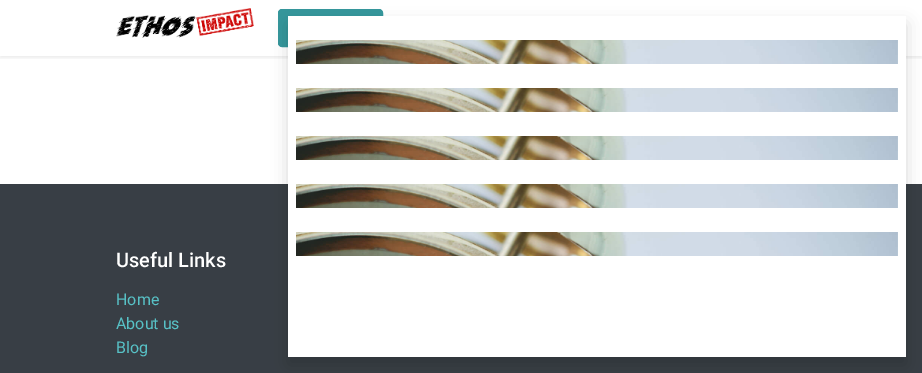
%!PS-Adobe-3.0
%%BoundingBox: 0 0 922 373
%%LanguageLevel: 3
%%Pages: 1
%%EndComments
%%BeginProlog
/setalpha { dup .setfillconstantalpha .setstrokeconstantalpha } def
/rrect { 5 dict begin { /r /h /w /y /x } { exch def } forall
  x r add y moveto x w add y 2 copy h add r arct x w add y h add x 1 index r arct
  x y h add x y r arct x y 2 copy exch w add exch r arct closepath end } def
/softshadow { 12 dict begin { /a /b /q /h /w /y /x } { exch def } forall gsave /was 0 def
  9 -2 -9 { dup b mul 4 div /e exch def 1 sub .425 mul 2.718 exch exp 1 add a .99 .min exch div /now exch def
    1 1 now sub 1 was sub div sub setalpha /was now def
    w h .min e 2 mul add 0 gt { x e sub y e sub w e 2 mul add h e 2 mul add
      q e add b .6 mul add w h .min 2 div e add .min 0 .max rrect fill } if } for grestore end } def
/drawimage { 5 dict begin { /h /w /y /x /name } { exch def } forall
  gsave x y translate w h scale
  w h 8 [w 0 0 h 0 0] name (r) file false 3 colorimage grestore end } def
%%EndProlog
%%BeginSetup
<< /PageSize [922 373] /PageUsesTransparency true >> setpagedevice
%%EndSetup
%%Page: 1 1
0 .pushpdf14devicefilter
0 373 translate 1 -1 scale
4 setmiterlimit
1 setgray
0 0 922 373 rectfill
gsave
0 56 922 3 rectclip
0 setgray
0 2 922 56 0 2 0.07 softshadow
grestore
(images/1.raw) 116 8 138 30 drawimage
0.208 0.592 0.612 setrgbcolor
278.5 9.5 104 37 3.5 rrect gsave fill grestore
stroke
0.22 0.243 0.271 setrgbcolor
0 184 922 189 rectfill
0 setgray
288 24 618 341 0 8 0.15 softshadow
1 setgray
288 16 618 341 rectfill
(images/2.raw) 296 40 602 24 drawimage
(images/2.raw) 296 88 602 24 drawimage
(images/2.raw) 296 136 602 24 drawimage
(images/2.raw) 296 184 602 24 drawimage
(images/2.raw) 296 232 602 24 drawimage
/Roboto-Medium [20 0 0 -20 0 0] selectfont
116 267 moveto (Useful Links) show
/Roboto-Regular [16 0 0 -16 0 0] selectfont
0.341 0.757 0.776 setrgbcolor
116 305 moveto (Home) show
116 329 moveto (About us) show
116 353 moveto (Blog) show
.poppdf14devicefilter showpage
%%EOF
